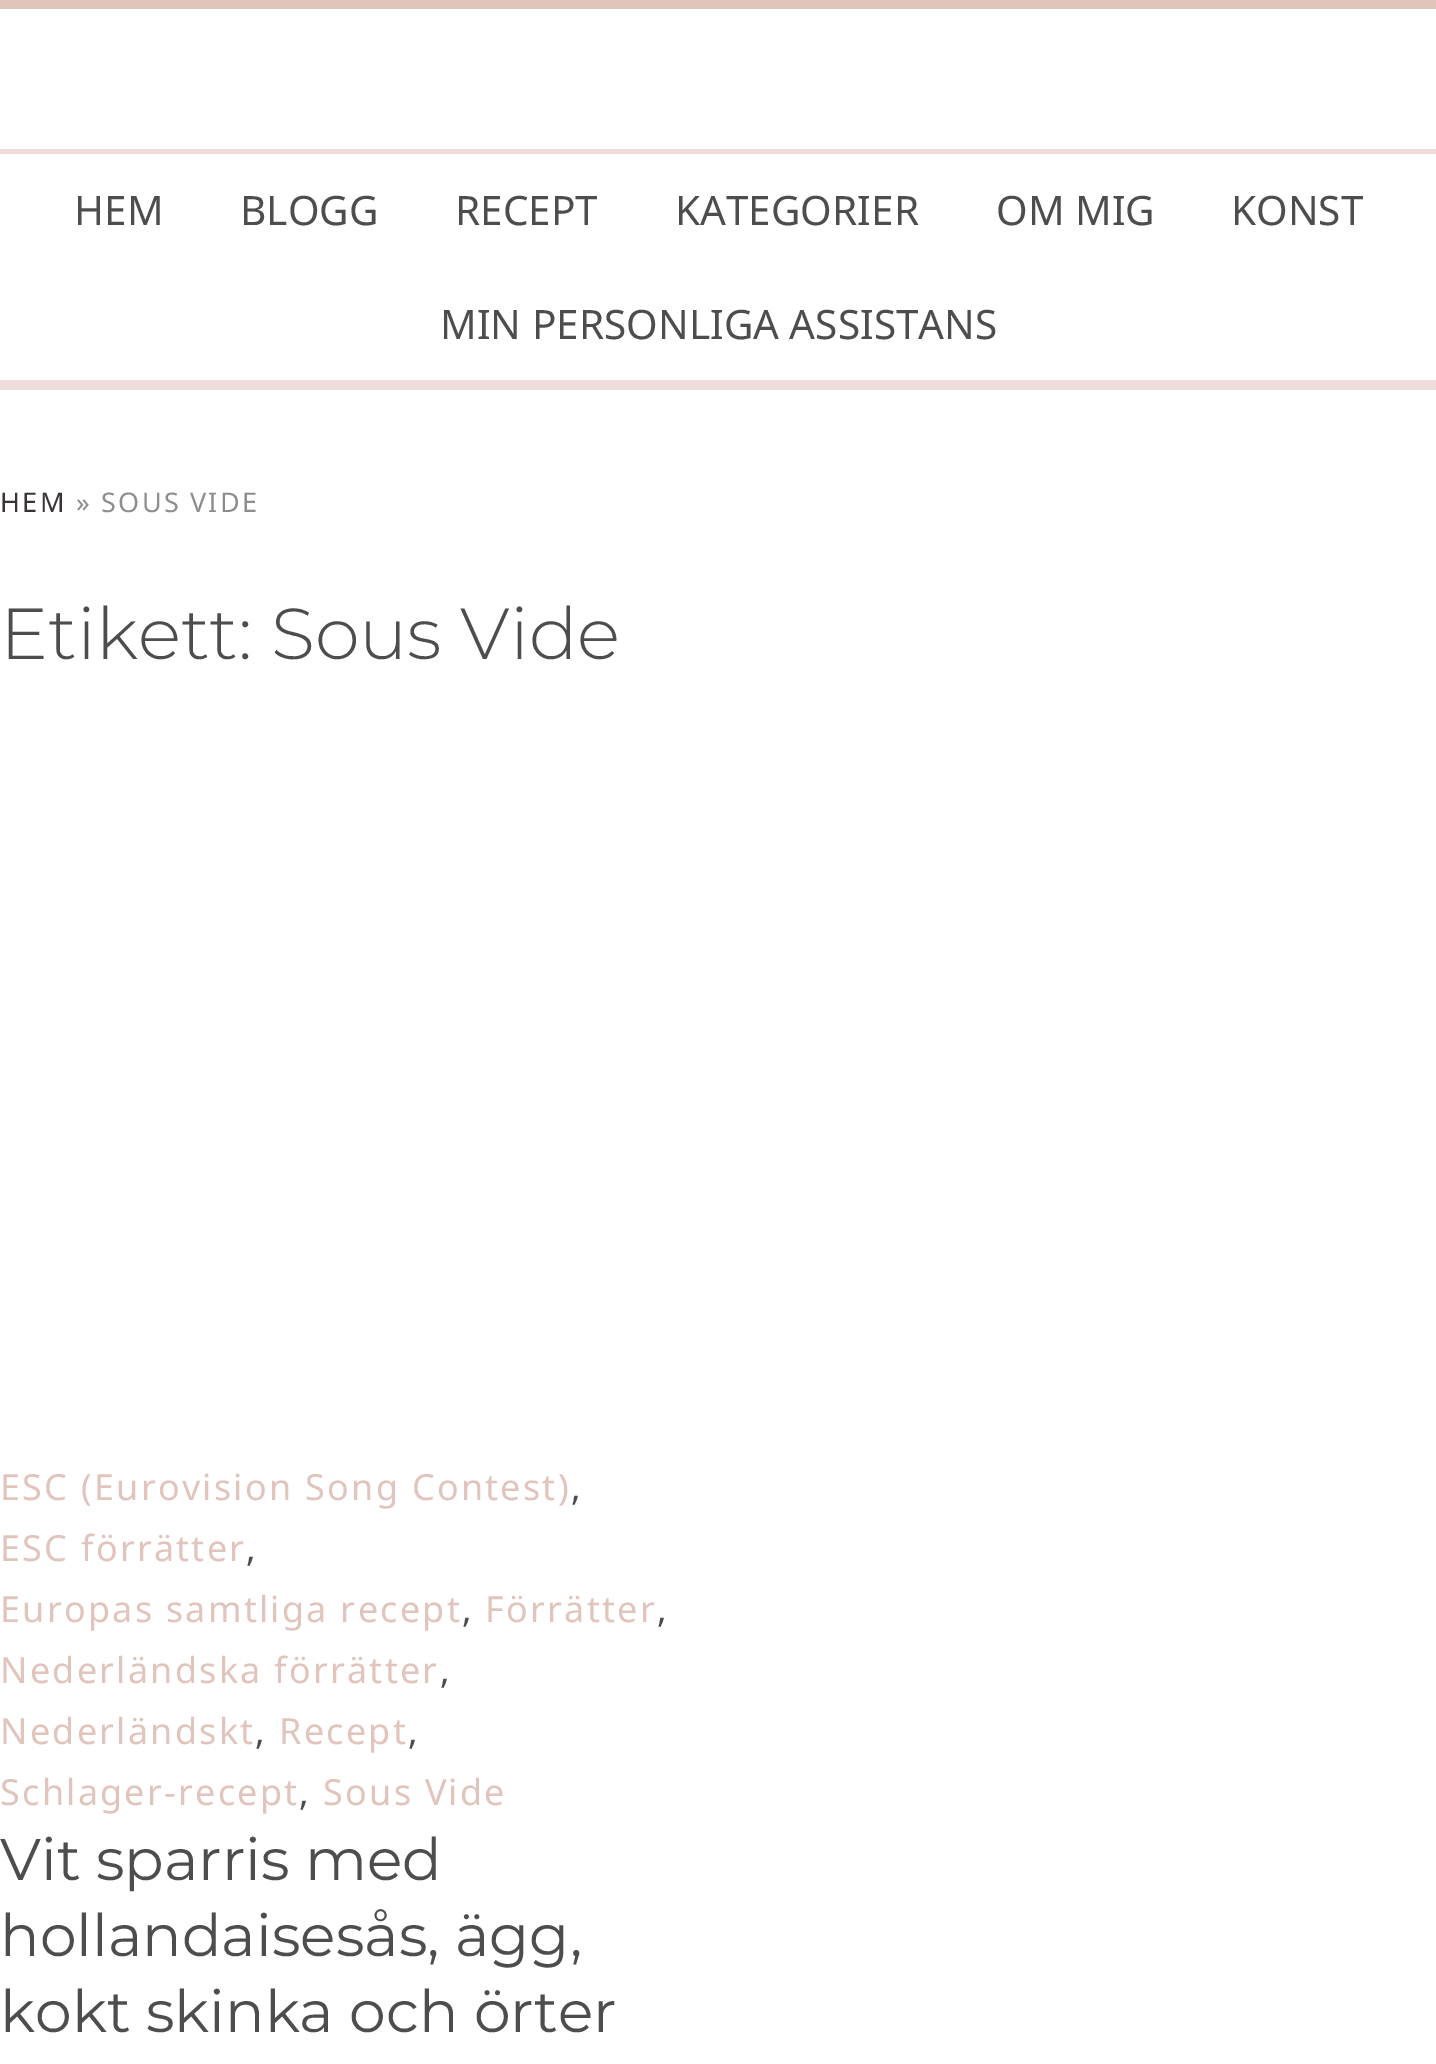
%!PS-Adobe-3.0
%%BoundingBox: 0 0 1436 2064
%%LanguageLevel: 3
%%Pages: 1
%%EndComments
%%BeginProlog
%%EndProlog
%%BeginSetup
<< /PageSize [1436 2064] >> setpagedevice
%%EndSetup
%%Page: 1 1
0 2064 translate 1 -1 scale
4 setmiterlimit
1 setgray
0 0 1436 2064 rectfill
0.882 0.769 0.737 setrgbcolor
0 0 1436 9 rectfill
0.941 0.863 0.859 setrgbcolor
0 380 1436 10 rectfill
0 149 1436 5 rectfill
/NotoSans-Regular [40.5 0 0 -40.5 0 0] selectfont
0.302 setgray
74 225 moveto (HEM) show
240 225 moveto (BLOGG) show
455 225 moveto (RECEPT) show
675 225 moveto (KATEGORIER) show
996 225 moveto (OM MIG) show
1231 225 moveto (KONST) show
440 339 moveto (MIN PERSONLIGA ASSISTANS) show
/NotoSans-Regular [27 0 0 -27 0 0] selectfont
0.227 0.196 0.208 setrgbcolor
0 512 moveto 2.25 0 (HEM) ashow
0.553 setgray
76 512 moveto 2.25 0 (» SOUS VIDE) ashow
/Montserrat-Light [72 0 0 -72 0 0] selectfont
0.302 setgray
0 659 moveto (Etikett: Sous Vide) show
/NotoSans-Regular [36 0 0 -36 0 0] selectfont
0.882 0.769 0.737 setrgbcolor
0 1500 moveto 2.25 0 (ESC \(Eurovision Song Contest\)) ashow
0.302 setgray
571 1500 moveto 2.25 0 (,) ashow
0.882 0.769 0.737 setrgbcolor
0 1561 moveto 2.25 0 (ESC förrätter) ashow
0.302 setgray
246 1561 moveto 2.25 0 (,) ashow
0.882 0.769 0.737 setrgbcolor
0 1622 moveto 2.25 0 (Europas samtliga recept) ashow
0.302 setgray
462 1622 moveto 2.25 0 (,) ashow
0.882 0.769 0.737 setrgbcolor
485 1622 moveto 2.25 0 (Förrätter) ashow
0.302 setgray
657 1622 moveto 2.25 0 (,) ashow
0.882 0.769 0.737 setrgbcolor
0 1683 moveto 2.25 0 (Nederländska förrätter) ashow
0.302 setgray
440 1683 moveto 2.25 0 (,) ashow
0.882 0.769 0.737 setrgbcolor
0 1744 moveto 2.25 0 (Nederländskt) ashow
0.302 setgray
255 1744 moveto 2.25 0 (,) ashow
0.882 0.769 0.737 setrgbcolor
279 1744 moveto 2.25 0 (Recept) ashow
0.302 setgray
408 1744 moveto 2.25 0 (,) ashow
0.882 0.769 0.737 setrgbcolor
0 1805 moveto 2.25 0 (Schlager-recept) ashow
0.302 setgray
299 1805 moveto 2.25 0 (,) ashow
0.882 0.769 0.737 setrgbcolor
323 1805 moveto 2.25 0 (Sous Vide) ashow
/Montserrat-Regular [58.5 0 0 -58.5 0 0] selectfont
0.302 setgray
0 1880 moveto (Vit sparris med) show
0 1956 moveto (hollandaisesås, ägg,) show
0 2032 moveto (kokt skinka och örter) show
showpage
%%EOF
